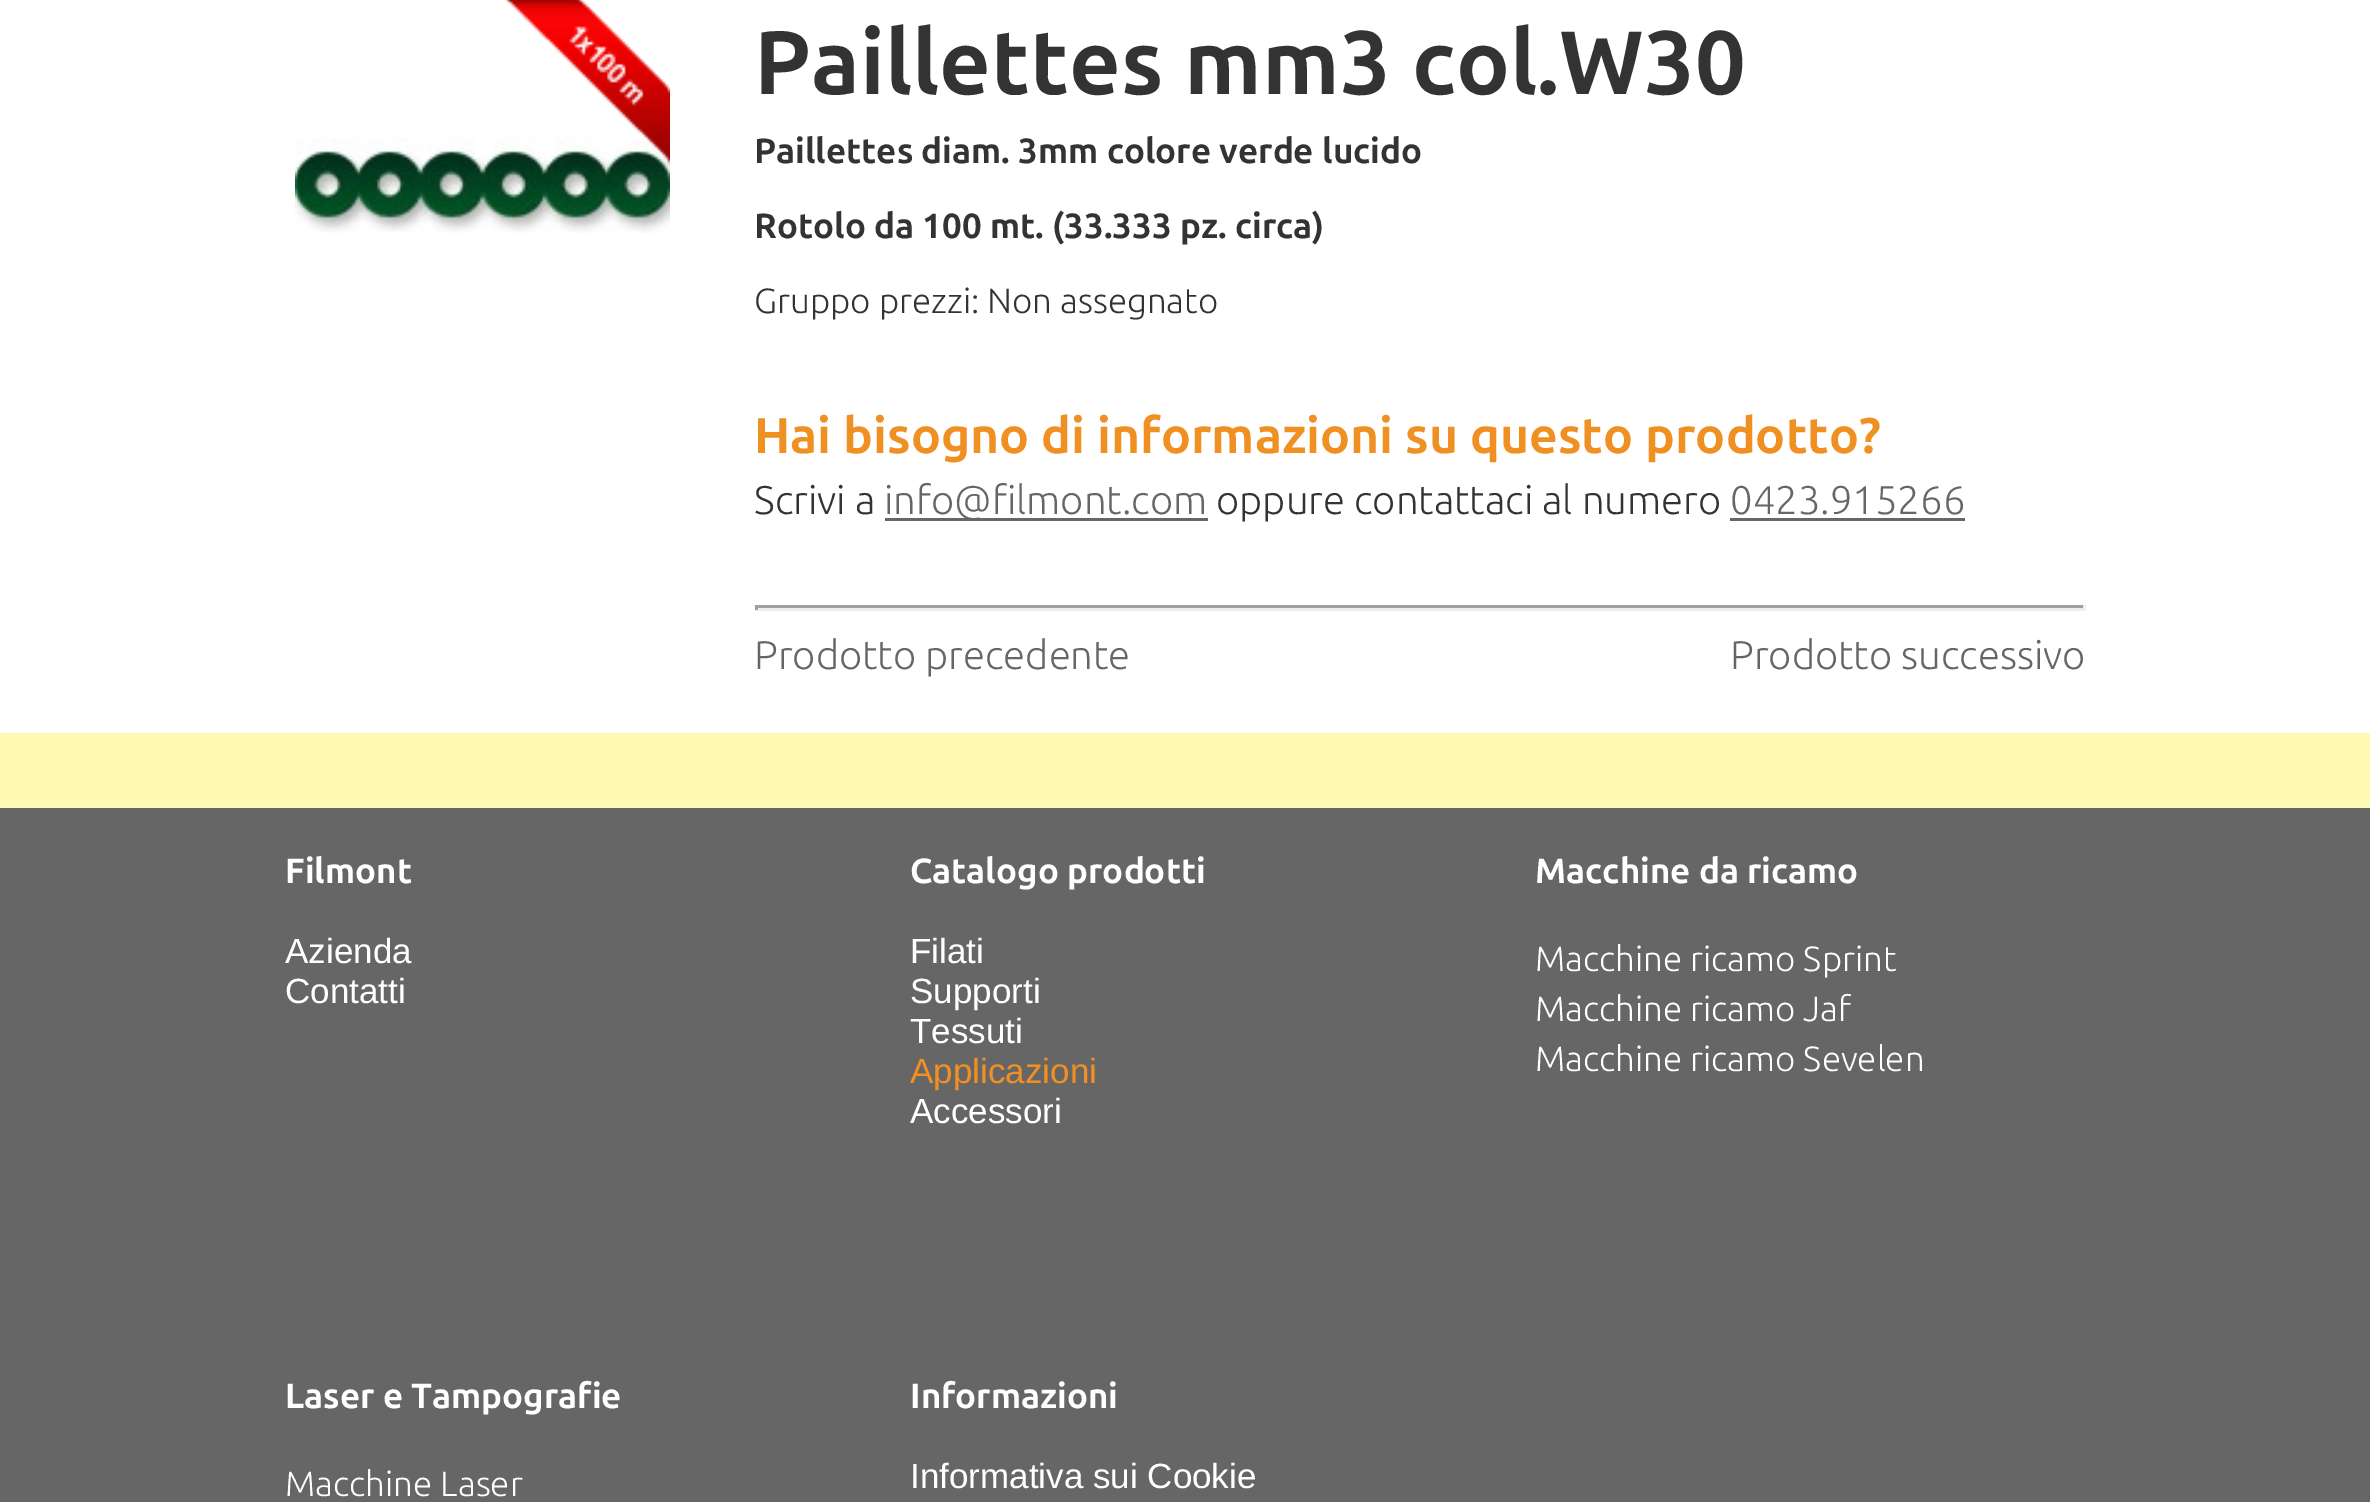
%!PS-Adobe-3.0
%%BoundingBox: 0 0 2370 1502
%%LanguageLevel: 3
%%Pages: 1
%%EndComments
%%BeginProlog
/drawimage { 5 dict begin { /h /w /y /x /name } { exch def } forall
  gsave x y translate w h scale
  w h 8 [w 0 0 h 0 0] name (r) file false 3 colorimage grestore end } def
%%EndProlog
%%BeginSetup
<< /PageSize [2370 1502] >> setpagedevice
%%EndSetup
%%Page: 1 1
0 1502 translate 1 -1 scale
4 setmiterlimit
0.4 setgray
0 0 2370 1502 rectfill
1 setgray
0 0 2370 733 rectfill
(images/2.raw) 295 138 375 95 drawimage
(images/1.raw) 503 0 167 165 drawimage
0.4 setgray
885 518 323 3 rectfill
1730 518 235 3 rectfill
0.624 setgray
755 605 1330 3 rectfill
0.933 setgray
2083 605 3 5 rectfill
755 608 1330 3 rectfill
0.624 setgray
755 605 3 5 rectfill
1 0.98 0.702 setrgbcolor
0 733 2370 75 rectfill
/Ubuntu-Bold [90 0 0 -90 0 0] selectfont
0.2 setgray
754 94 moveto (Paillettes mm3 col.W30) show
/Ubuntu-Bold [35 0 0 -35 0 0] selectfont
754 163 moveto (Paillettes diam. 3mm colore verde lucido) show
754 238 moveto (Rotolo da 100 mt. \(33.333 pz. circa\)) show
/Ubuntu-Light [35 0 0 -35 0 0] selectfont
754 313 moveto (Gruppo prezzi: Non assegnato) show
/Ubuntu-Bold [50 0 0 -50 0 0] selectfont
0.941 0.565 0.137 setrgbcolor
754 453 moveto (Hai bisogno di informazioni su questo prodotto?) show
/Ubuntu-Light [40 0 0 -40 0 0] selectfont
0.2 setgray
754 514 moveto (Scrivi a) show
0.4 setgray
884 514 moveto (info@filmont.com) show
0.2 setgray
1216 514 moveto (oppure contattaci al numero) show
0.4 setgray
1730 514 moveto (0423.915266) show
754 669 moveto (Prodotto precedente) show
1730 669 moveto (Prodotto successivo) show
/Ubuntu-Bold [35 0 0 -35 0 0] selectfont
1 setgray
285 883 moveto (Filmont) show
/LiberationSans-Regular [35 0 0 -35 0 0] selectfont
285 963 moveto (Azienda) show
285 1003 moveto (Contatti) show
/Ubuntu-Bold [35 0 0 -35 0 0] selectfont
910 883 moveto (Catalogo prodotti) show
/LiberationSans-Regular [35 0 0 -35 0 0] selectfont
910 963 moveto (Filati) show
910 1003 moveto (Supporti) show
910 1043 moveto (Tessuti) show
0.941 0.565 0.137 setrgbcolor
910 1083 moveto (Applicazioni) show
1 setgray
910 1123 moveto (Accessori) show
/Ubuntu-Bold [35 0 0 -35 0 0] selectfont
1535 883 moveto (Macchine da ricamo) show
/Ubuntu-Light [35 0 0 -35 0 0] selectfont
1535 971 moveto (Macchine ricamo Sprint) show
1535 1021 moveto (Macchine ricamo Jaf) show
1535 1071 moveto (Macchine ricamo Sevelen) show
/Ubuntu-Bold [35 0 0 -35 0 0] selectfont
285 1408 moveto (Laser e Tampografie) show
/Ubuntu-Light [35 0 0 -35 0 0] selectfont
285 1496 moveto (Macchine Laser) show
/Ubuntu-Bold [35 0 0 -35 0 0] selectfont
910 1408 moveto (Informazioni) show
/LiberationSans-Regular [35 0 0 -35 0 0] selectfont
910 1488 moveto (Informativa sui Cookie) show
showpage
%%EOF
